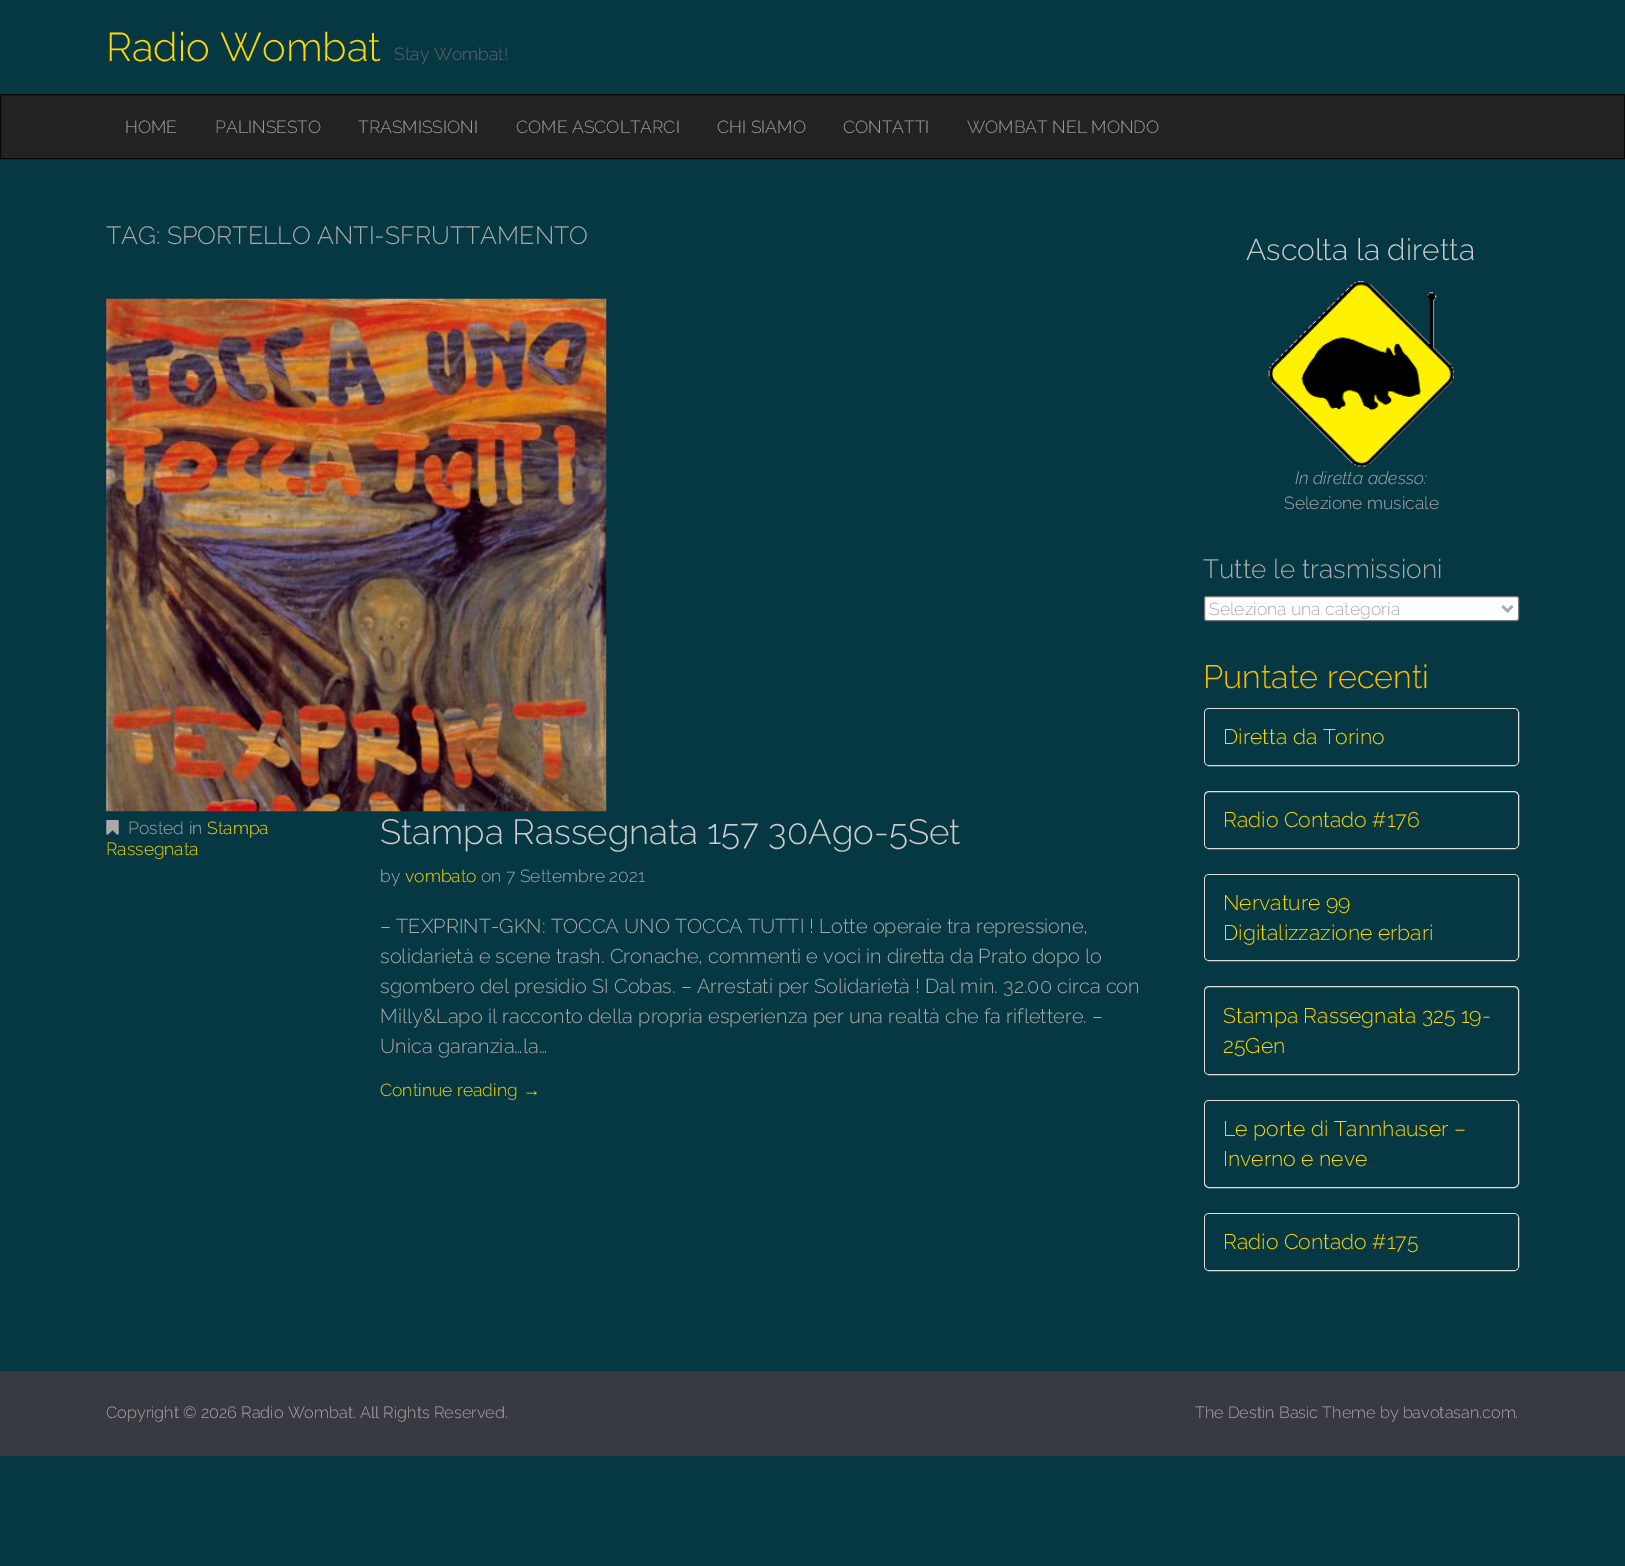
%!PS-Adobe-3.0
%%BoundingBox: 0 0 1625 1566
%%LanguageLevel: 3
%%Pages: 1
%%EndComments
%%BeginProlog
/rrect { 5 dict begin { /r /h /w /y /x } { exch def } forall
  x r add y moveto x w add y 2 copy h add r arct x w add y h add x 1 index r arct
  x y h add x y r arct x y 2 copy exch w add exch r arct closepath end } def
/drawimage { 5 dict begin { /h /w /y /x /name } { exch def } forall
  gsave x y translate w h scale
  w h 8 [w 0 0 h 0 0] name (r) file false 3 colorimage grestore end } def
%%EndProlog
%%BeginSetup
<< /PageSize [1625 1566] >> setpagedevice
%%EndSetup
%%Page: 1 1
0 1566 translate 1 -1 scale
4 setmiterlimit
0.024 0.22 0.267 setrgbcolor
0 0 1625 1566 rectfill
0.133 setgray
newpath 0.5 94.5 moveto 1624.5 94.5 lineto 1624.5 158.5 lineto 0.5 158.5 lineto closepath gsave fill grestore
0.035 setgray
stroke
(images/1.raw) 106 298 501 514 drawimage
(images/2.raw) 106 820 13 15 drawimage
(images/3.raw) 1268 281 186 186 drawimage
1 setgray
1204.5 596.5 314 24 2 rrect gsave fill grestore
0.463 setgray
stroke
0.667 setgray
2.5 setlinewidth
newpath 1502.5 606 moveto 1507.5 611 lineto 1512.5 606 lineto stroke
0.867 setgray
1 setlinewidth
1204.5 708.5 314 57 4.5 rrect stroke
0.024 0.22 0.267 setrgbcolor
1205 709 313 56 4 rrect fill
0.867 setgray
1204.5 791.5 314 57 4.5 rrect stroke
0.024 0.22 0.267 setrgbcolor
1205 793 313 55 4 rrect fill
0.867 setgray
1204.5 874.5 314 86 4.5 rrect stroke
0.024 0.22 0.267 setrgbcolor
1205 875 313 85 4 rrect fill
0.867 setgray
1204.5 986.5 314 88 4.5 rrect stroke
0.024 0.22 0.267 setrgbcolor
1205 988 313 86 4 rrect fill
0.867 setgray
1204.5 1100.5 314 87 4.5 rrect stroke
0.024 0.22 0.267 setrgbcolor
1205 1101 313 85 4 rrect fill
0.867 setgray
1204.5 1213.5 314 57 4.5 rrect stroke
0.024 0.22 0.267 setrgbcolor
1205 1214 313 56 4 rrect fill
0.22 0.227 0.259 setrgbcolor
0 1371 1625 85 rectfill
/Raleway-Light [40 0 0 -40 0 0] selectfont
1 0.843 0 setrgbcolor
106 61 moveto (Radio Wombat) show
/Raleway-Light [17.5 0 0 -17.5 0 0] selectfont
0.4 setgray
394 60 moveto (Stay Wombat!) show
0.616 setgray
125 133 moveto (HOME) show
215 133 moveto (PALINSESTO) show
358 133 moveto (TRASMISSIONI) show
516 133 moveto (COME ASCOLTARCI) show
717 133 moveto (CHI SIAMO) show
843 133 moveto (CONTATTI) show
967 133 moveto (WOMBAT NEL MONDO) show
/Raleway-Light [25 0 0 -25 0 0] selectfont
0.667 setgray
106 244 moveto (TAG: SPORTELLO ANTI-SFRUTTAMENTO) show
/Raleway-Light [17.5 0 0 -17.5 0 0] selectfont
128 834 moveto (Posted in) show
1 0.843 0 setrgbcolor
207 834 moveto (Stampa) show
106 855 moveto (Rassegnata) show
/Raleway-Light [35 0 0 -35 0 0] selectfont
0.8 setgray
380 844 moveto (Stampa Rassegnata 157 30Ago-5Set) show
/Raleway-Light [17.5 0 0 -17.5 0 0] selectfont
0.667 setgray
380 882 moveto (by) show
1 0.843 0 setrgbcolor
405 882 moveto (vombato) show
0.667 setgray
481 882 moveto (on 7 Settembre 2021) show
/Raleway-Light [20 0 0 -20 0 0] selectfont
380 933 moveto (– TEXPRINT-GKN: TOCCA UNO TOCCA TUTTI ! Lotte operaie tra repressione,) show
380 963 moveto (solidarietà e scene trash. Cronache, commenti e voci in diretta da Prato dopo lo) show
380 993 moveto (sgombero del presidio SI Cobas. – Arrestati per Solidarietà ! Dal min. 32.00 circa con) show
380 1023 moveto (Milly&Lapo il racconto della propria esperienza per una realtà che fa riflettere. –) show
380 1053 moveto (Unica garanzia…la…) show
/Raleway-Light [17.5 0 0 -17.5 0 0] selectfont
1 0.843 0 setrgbcolor
380 1096 moveto (Continue reading) show
/LiberationSans-Regular [17.5 0 0 -17.5 0 0] selectfont
523 1096 moveto (→) show
/Raleway-Light [30 0 0 -30 0 0] selectfont
0.8 setgray
1246 260 moveto (Ascolta la diretta) show
/Raleway-LightItalic [17.5 0 0 -17.5 0 0] selectfont
0.667 setgray
1295 484 moveto (In diretta adesso:) show
/Raleway-Light [17.5 0 0 -17.5 0 0] selectfont
1284 509 moveto (Selezione musicale) show
/Raleway-Light [26.25 0 0 -26.25 0 0] selectfont
1203 578 moveto (Tutte le trasmissioni) show
/Raleway-Light [17.5 0 0 -17.5 0 0] selectfont
1209 615 moveto (Seleziona una categoria) show
/Raleway-Light [32.5 0 0 -32.5 0 0] selectfont
0.988 0.725 0 setrgbcolor
1203 688 moveto (Puntate recenti) show
/Raleway-Light [21.25 0 0 -21.25 0 0] selectfont
1 0.843 0 setrgbcolor
1223 744 moveto (Diretta da Torino) show
1223 827 moveto (Radio Contado #176) show
1223 910 moveto (Nervature 99) show
1223 940 moveto (Digitalizzazione erbari) show
1223 1023 moveto (Stampa Rassegnata 325 19-) show
1223 1053 moveto (25Gen) show
1223 1136 moveto (Le porte di Tannhauser –) show
1223 1166 moveto (Inverno e neve) show
1223 1249 moveto (Radio Contado #175) show
/Raleway-Light [16.25 0 0 -16.25 0 0] selectfont
0.667 setgray
106 1418 moveto (Copyright © 2026 Radio Wombat. All Rights Reserved.) show
1195 1418 moveto (The Destin Basic Theme by bavotasan.com.) show
showpage
%%EOF
